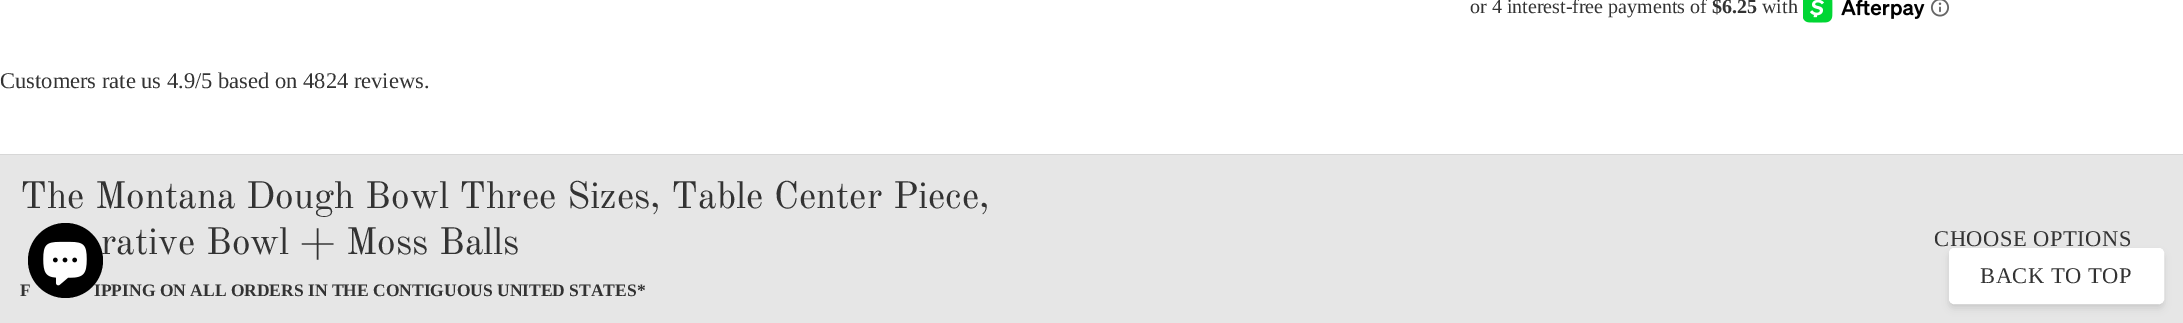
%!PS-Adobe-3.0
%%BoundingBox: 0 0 2183 323
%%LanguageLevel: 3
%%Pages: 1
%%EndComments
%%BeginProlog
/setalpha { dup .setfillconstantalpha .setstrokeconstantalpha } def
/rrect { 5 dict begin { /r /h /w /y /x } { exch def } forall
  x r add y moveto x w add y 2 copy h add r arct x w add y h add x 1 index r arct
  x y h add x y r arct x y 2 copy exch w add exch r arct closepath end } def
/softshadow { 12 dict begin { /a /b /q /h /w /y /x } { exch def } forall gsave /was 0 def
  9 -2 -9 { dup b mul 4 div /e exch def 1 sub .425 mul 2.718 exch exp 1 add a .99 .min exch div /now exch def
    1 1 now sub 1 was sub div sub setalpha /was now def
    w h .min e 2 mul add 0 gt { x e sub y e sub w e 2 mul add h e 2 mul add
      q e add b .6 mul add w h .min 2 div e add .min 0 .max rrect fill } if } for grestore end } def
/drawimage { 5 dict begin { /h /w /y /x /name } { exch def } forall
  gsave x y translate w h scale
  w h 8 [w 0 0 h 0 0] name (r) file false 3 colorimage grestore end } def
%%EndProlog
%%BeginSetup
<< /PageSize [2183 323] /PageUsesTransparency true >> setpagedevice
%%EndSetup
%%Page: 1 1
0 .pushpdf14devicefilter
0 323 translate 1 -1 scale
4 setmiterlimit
1 setgray
0 0 2183 323 rectfill
(images/1.raw) 1803 0 122 23 drawimage
(images/2.raw) 1930 0 20 17 drawimage
0.902 setgray
0 155 2183 168 rectfill
0.843 setgray
0 154 2183 1 rectfill
0 setgray
1951 253 210 51 2.5 2.5 0.1 softshadow
1950 254 213 54 4 4 0.1 softshadow
1 setgray
1949.5 248.5 214 55 4.5 rrect gsave fill grestore
stroke
/LiberationSerif-Regular [20 0 0 -20 0 0] selectfont
0.2 setgray
1470 13 moveto (or 4 interest-free payments of) show
/LiberationSerif-Bold [20 0 0 -20 0 0] selectfont
1712 13 moveto ($6.25) show
/LiberationSerif-Regular [20 0 0 -20 0 0] selectfont
1762 13 moveto (with) show
/OldStandardTT-Regular [37.5 0 0 -37.5 0 0] selectfont
20 208 moveto (The Montana Dough Bowl Three Sizes, Table Center Piece,) show
101 254 moveto (rative Bowl + Moss Balls) show
/LiberationSerif-Bold [17.5 0 0 -17.5 0 0] selectfont
20 296 moveto (F) show
94 296 moveto (IPPING ON ALL ORDERS IN THE CONTIGUOUS UNITED STATES*) show
/LiberationSerif-Regular [22.5 0 0 -22.5 0 0] selectfont
1934 246 moveto 0.5 0 (CHOOSE OPTIONS) ashow
0 88 moveto (Customers rate us 4.9/5 based on 4824 reviews.) show
0 setgray
newpath 65.5 260.5 37.5 0 360 arc closepath fill
(images/3.raw) 43 241 44 45 drawimage
0.2 setgray
1980 283 moveto 0.5 0 (BACK TO TOP) ashow
.poppdf14devicefilter showpage
%%EOF
